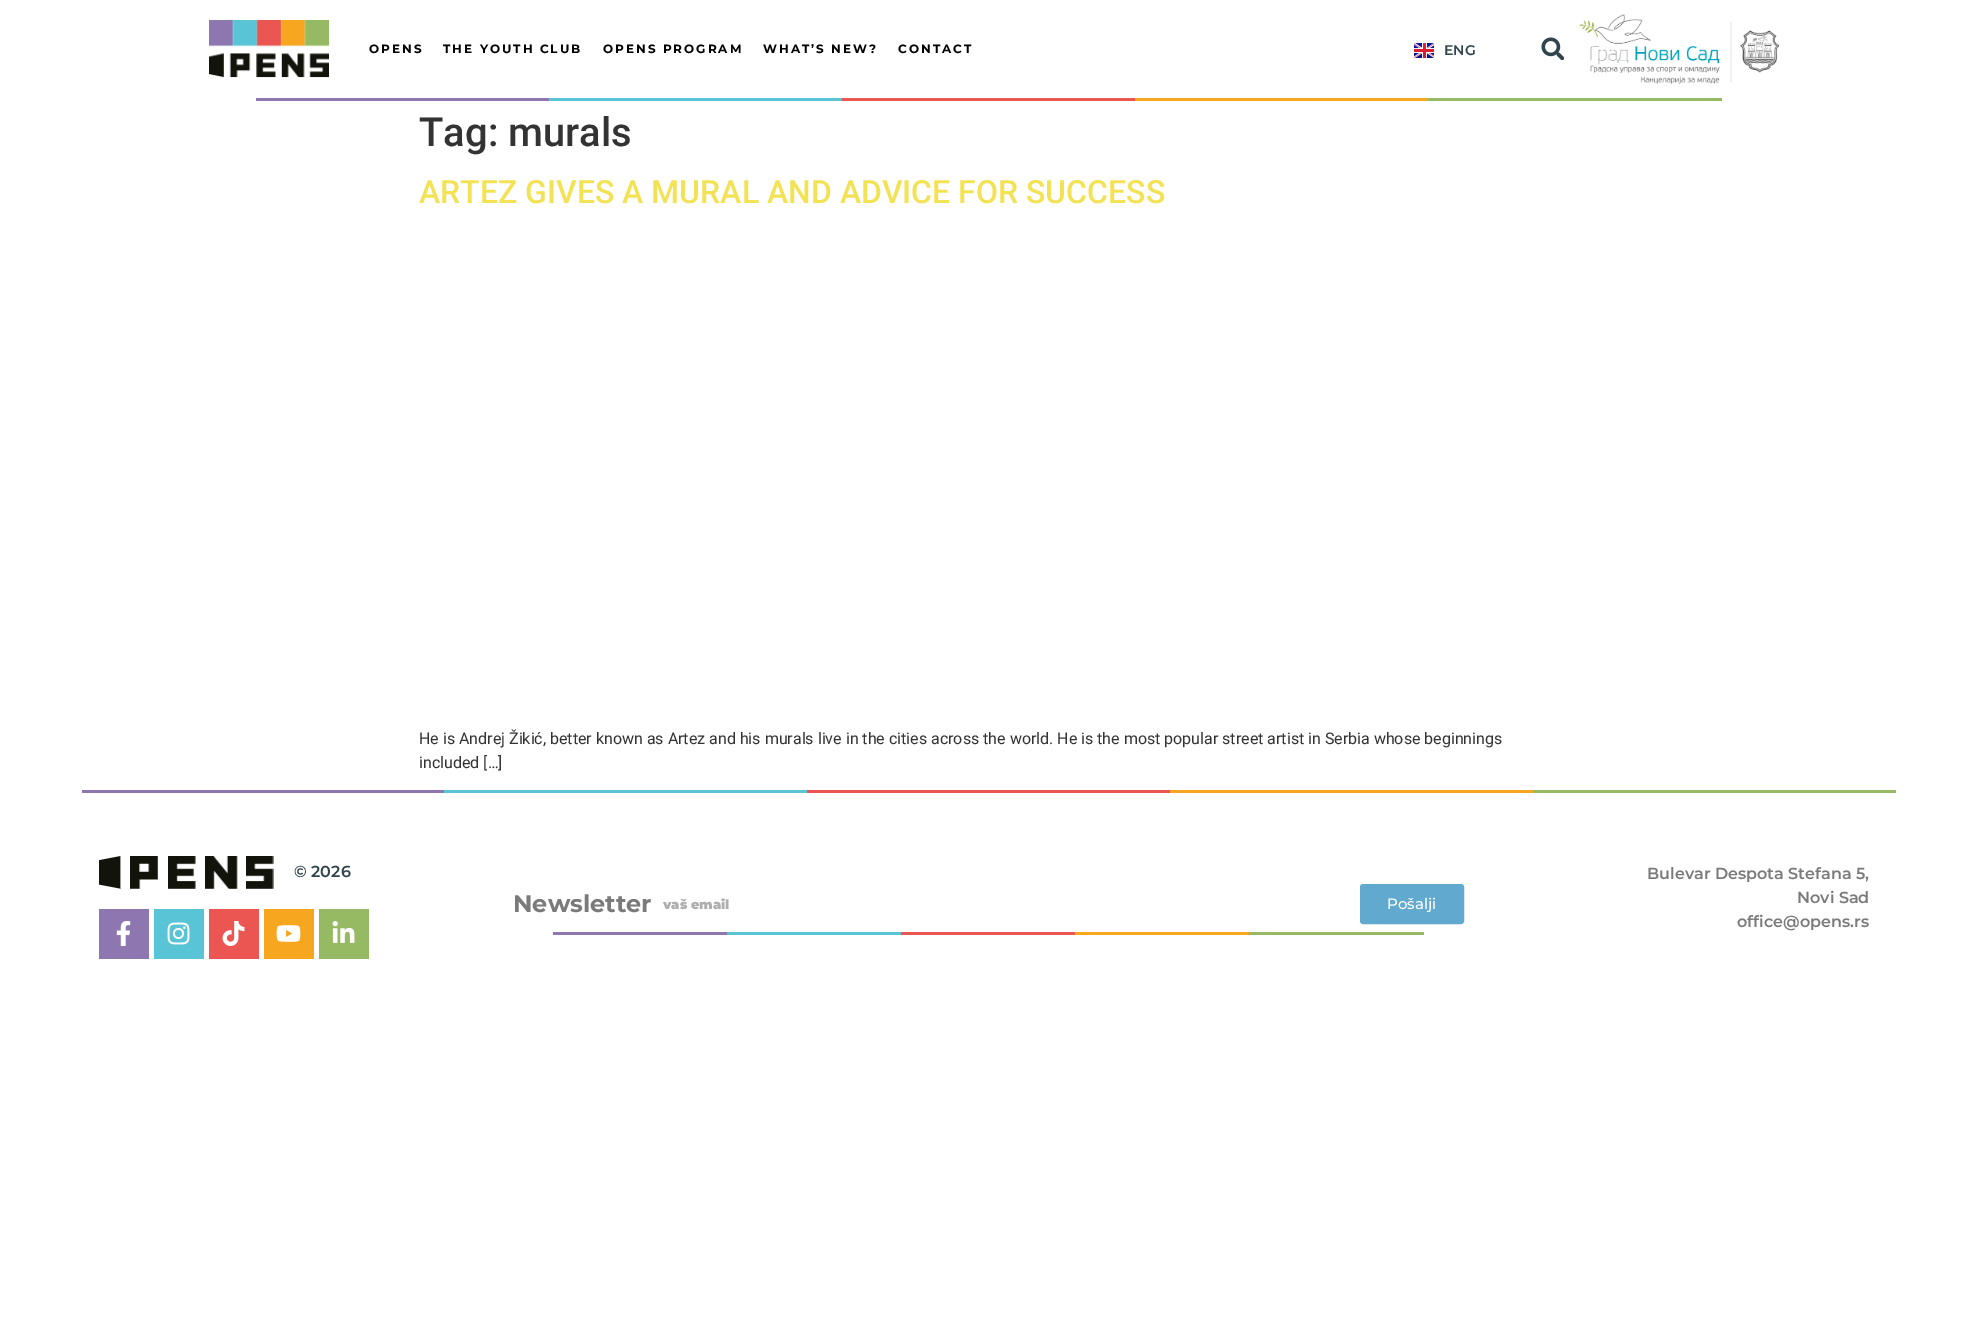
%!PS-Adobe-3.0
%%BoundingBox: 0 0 1978 1331
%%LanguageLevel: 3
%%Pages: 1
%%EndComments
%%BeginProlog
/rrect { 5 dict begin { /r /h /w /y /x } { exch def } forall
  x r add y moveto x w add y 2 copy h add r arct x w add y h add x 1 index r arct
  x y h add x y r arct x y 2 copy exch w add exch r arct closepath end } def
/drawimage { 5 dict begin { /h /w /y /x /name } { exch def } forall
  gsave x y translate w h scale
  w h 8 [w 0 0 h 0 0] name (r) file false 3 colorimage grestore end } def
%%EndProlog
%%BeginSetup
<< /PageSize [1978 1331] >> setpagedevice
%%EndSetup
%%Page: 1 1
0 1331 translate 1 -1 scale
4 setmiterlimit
1 setgray
0 0 1978 1331 rectfill
(images/1.raw) 209 20 120 58 drawimage
(images/2.raw) 1414 43 20 15 drawimage
(images/3.raw) 1541 37 23 23 drawimage
(images/4.raw) 1579 14 200 70 drawimage
0.557 0.463 0.694 setrgbcolor
256 98 294 3 rectfill
0.349 0.769 0.835 setrgbcolor
549 98 294 3 rectfill
0.922 0.337 0.325 setrgbcolor
842 98 294 3 rectfill
0.969 0.651 0.125 setrgbcolor
1135 98 294 3 rectfill
0.588 0.729 0.392 setrgbcolor
1428 98 294 3 rectfill
0.557 0.463 0.694 setrgbcolor
82 790 363 3 rectfill
0.349 0.769 0.835 setrgbcolor
444 790 364 3 rectfill
0.922 0.337 0.325 setrgbcolor
807 790 364 3 rectfill
0.969 0.651 0.125 setrgbcolor
1170 790 364 3 rectfill
0.588 0.729 0.392 setrgbcolor
1533 790 363 3 rectfill
(images/5.raw) 99 856 175 33 drawimage
0.557 0.463 0.694 setrgbcolor
99 909 50 50 rectfill
(images/6.raw) 116 921 15 25 drawimage
0.349 0.769 0.835 setrgbcolor
154 909 50 50 rectfill
(images/7.raw) 167 922 23 23 drawimage
0.922 0.337 0.325 setrgbcolor
209 909 50 50 rectfill
(images/8.raw) 222 921 23 25 drawimage
0.969 0.651 0.125 setrgbcolor
264 909 50 50 rectfill
(images/9.raw) 276 925 25 17 drawimage
0.588 0.729 0.392 setrgbcolor
319 909 50 50 rectfill
(images/10.raw) 332 921 23 22 drawimage
0.38 0.663 0.808 setrgbcolor
1361.5 885.5 101 37 1.5 rrect gsave fill grestore
3 setlinewidth
stroke
0.557 0.463 0.694 setrgbcolor
553 932 174 3 rectfill
0.349 0.769 0.835 setrgbcolor
727 932 175 3 rectfill
0.922 0.337 0.325 setrgbcolor
901 932 175 3 rectfill
0.969 0.651 0.125 setrgbcolor
1075 932 175 3 rectfill
0.588 0.729 0.392 setrgbcolor
1249 932 175 3 rectfill
/Montserrat-Bold [12 0 0 -12 0 0] selectfont
0 setgray
369 53 moveto 2 0 (OPENS) ashow
443 53 moveto 2 0 (THE YOUTH CLUB) ashow
603 53 moveto 2 0 (OPENS PROGRAM) ashow
763 53 moveto 2 0 (WHAT’S NEW?) ashow
898 53 moveto 2 0 (CONTACT) ashow
/Montserrat-SemiBold [14 0 0 -14 0 0] selectfont
0.184 0.267 0.302 setrgbcolor
1444 55 moveto (ENG) show
/Roboto-Medium [40 0 0 -40 0 0] selectfont
0.2 setgray
419 146 moveto (Tag: murals) show
/Roboto-Medium [32 0 0 -32 0 0] selectfont
0.953 0.89 0.329 setrgbcolor
419 203 moveto (ARTEZ GIVES A MURAL AND ADVICE FOR SUCCESS) show
/Roboto-Regular [16 0 0 -16 0 0] selectfont
0.2 setgray
419 744 moveto (He is Andrej Žikić, better known as Artez and his murals live in the cities across the world. He is the most popular street artist in Serbia whose beginnings) show
419 768 moveto (included […]) show
/Montserrat-SemiBold [16 0 0 -16 0 0] selectfont
0.184 0.267 0.302 setrgbcolor
294 877 moveto (© 2026) show
/Montserrat-Bold [24 0 0 -24 0 0] selectfont
0.478 setgray
513 912 moveto (Newsletter) show
/Montserrat-Black [13 0 0 -13 0 0] selectfont
0.686 setgray
663 909 moveto (vaš email) show
/Montserrat-Medium [15 0 0 -15 0 0] selectfont
1 setgray
1387 909 moveto (Pošalji) show
/Montserrat-SemiBold [16 0 0 -16 0 0] selectfont
0.478 setgray
1647 879 moveto (Bulevar Despota Stefana 5,) show
1797 903 moveto (Novi Sad) show
1737 927 moveto (office@opens.rs) show
showpage
%%EOF
